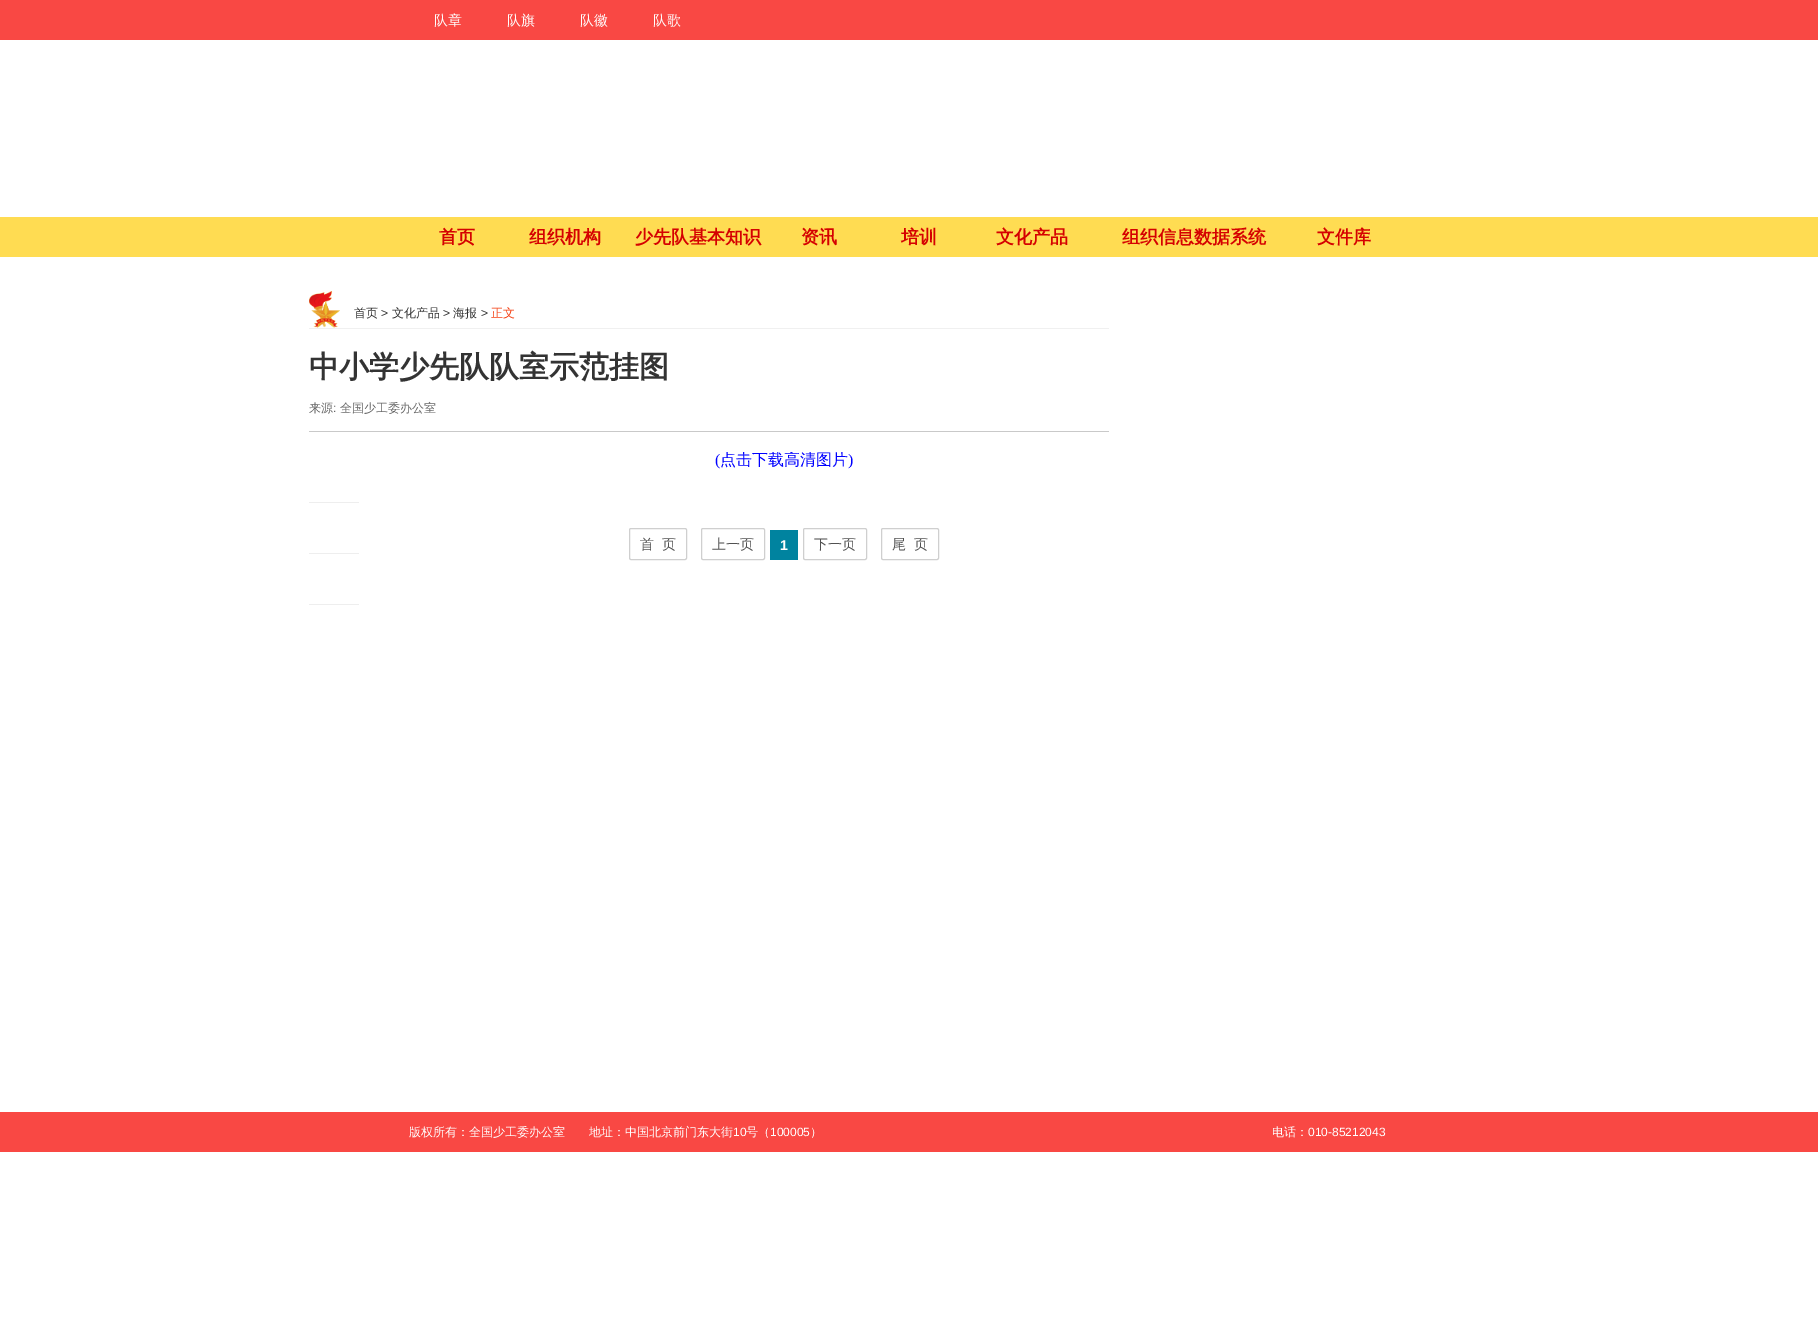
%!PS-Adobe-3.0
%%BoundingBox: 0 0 1818 1330
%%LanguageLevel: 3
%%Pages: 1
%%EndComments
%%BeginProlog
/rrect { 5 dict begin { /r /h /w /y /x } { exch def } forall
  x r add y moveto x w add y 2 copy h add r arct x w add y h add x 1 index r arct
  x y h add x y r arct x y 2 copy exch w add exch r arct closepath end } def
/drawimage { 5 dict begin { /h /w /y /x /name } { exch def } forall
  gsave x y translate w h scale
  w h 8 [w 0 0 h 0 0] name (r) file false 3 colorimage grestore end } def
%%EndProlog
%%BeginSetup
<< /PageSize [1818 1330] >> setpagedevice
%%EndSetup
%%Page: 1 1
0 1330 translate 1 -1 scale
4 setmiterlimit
1 setgray
0 0 1818 1330 rectfill
0.976 0.282 0.267 setrgbcolor
0 0 1818 40 rectfill
1 0.863 0.322 setrgbcolor
0 217 1818 40 rectfill
0.941 setgray
309 328 800 1 rectfill
(images/1.raw) 309 291 31 37 drawimage
0.788 setgray
309 431 800 1 rectfill
0.933 setgray
309 502 50 1 rectfill
309 553 50 1 rectfill
309 604 50 1 rectfill
0.812 setgray
629.5 528.5 57 31 1.5 rrect stroke
701.5 528.5 63 31 1.5 rrect stroke
0 0.514 0.624 setrgbcolor
770 530 28 30 rectfill
0.812 setgray
803.5 528.5 63 31 1.5 rrect stroke
881.5 528.5 57 31 1.5 rrect stroke
0.976 0.282 0.267 setrgbcolor
0 1112 1818 40 rectfill
/WenQuanYiZenHei-Medium [14 0 0 -14 0 0] selectfont
1 setgray
434 25 moveto (队章) show
507 25 moveto (队旗) show
580 25 moveto (队徽) show
653 25 moveto (队歌) show
/WenQuanYiZenHei-Bold [18 0 0 -18 0 0] selectfont
0.835 0.004 0.004 setrgbcolor
439 243 moveto (首页) show
529 243 moveto (组织机构) show
635 243 moveto (少先队基本知识) show
801 243 moveto (资讯) show
901 243 moveto (培训) show
996 243 moveto (文化产品) show
1122 243 moveto (组织信息数据系统) show
1317 243 moveto (文件库) show
/WenQuanYiZenHei-Medium [12 0 0 -12 0 0] selectfont
0.2 setgray
354 317 moveto (首页) show
/LiberationSans-Regular [12 0 0 -12 0 0] selectfont
381 317 moveto (>) show
/WenQuanYiZenHei-Medium [12 0 0 -12 0 0] selectfont
392 317 moveto (文化产品) show
/LiberationSans-Regular [12 0 0 -12 0 0] selectfont
443 317 moveto (>) show
/WenQuanYiZenHei-Medium [12 0 0 -12 0 0] selectfont
453 317 moveto (海报) show
/LiberationSans-Regular [12 0 0 -12 0 0] selectfont
481 317 moveto (>) show
/WenQuanYiZenHei-Medium [12 0 0 -12 0 0] selectfont
0.961 0.247 0.071 setrgbcolor
491 317 moveto (正文) show
/WenQuanYiZenHei-Bold [30 0 0 -30 0 0] selectfont
0.2 setgray
309 377 moveto (中小学少先队队室示范挂图) show
/WenQuanYiZenHei-Medium [12 0 0 -12 0 0] selectfont
0.4 setgray
309 412 moveto (来源) show
/LiberationSans-Regular [12 0 0 -12 0 0] selectfont
333 412 moveto (:) show
/WenQuanYiZenHei-Medium [12 0 0 -12 0 0] selectfont
340 412 moveto (全国少工委办公室) show
/LiberationSerif-Regular [16 0 0 -16 0 0] selectfont
0 0 1 setrgbcolor
715 465 moveto (\() show
gsave
309 452 800 600 rectclip
/WenQuanYiZenHei-Medium [16 0 0 -16 0 0] selectfont
720 465 moveto (点击下载高清图片) show
grestore
848 465 moveto (\)) show
/WenQuanYiZenHei-Medium [14 0 0 -14 0 0] selectfont
0.318 setgray
640 549 moveto (首) show
662 549 moveto (页) show
712 549 moveto (上一页) show
/LiberationSans-Bold [14 0 0 -14 0 0] selectfont
1 setgray
780 550 moveto (1) show
/WenQuanYiZenHei-Medium [14 0 0 -14 0 0] selectfont
0.318 setgray
814 549 moveto (下一页) show
892 549 moveto (尾) show
914 549 moveto (页) show
/WenQuanYiZenHei-Medium [12 0 0 -12 0 0] selectfont
1 setgray
409 1136 moveto (版权所有：全国少工委办公室　　地址：中国北京前门东大街) show
/LiberationSans-Regular [12 0 0 -12 0 0] selectfont
733 1136 moveto (10) show
/WenQuanYiZenHei-Medium [12 0 0 -12 0 0] selectfont
746 1136 moveto (号（) show
/LiberationSans-Regular [12 0 0 -12 0 0] selectfont
770 1136 moveto (100005) show
/WenQuanYiZenHei-Medium [12 0 0 -12 0 0] selectfont
810 1136 moveto (）) show
1272 1136 moveto (电话：) show
/LiberationSans-Regular [12 0 0 -12 0 0] selectfont
1308 1136 moveto (010-85212043) show
showpage
%%EOF
